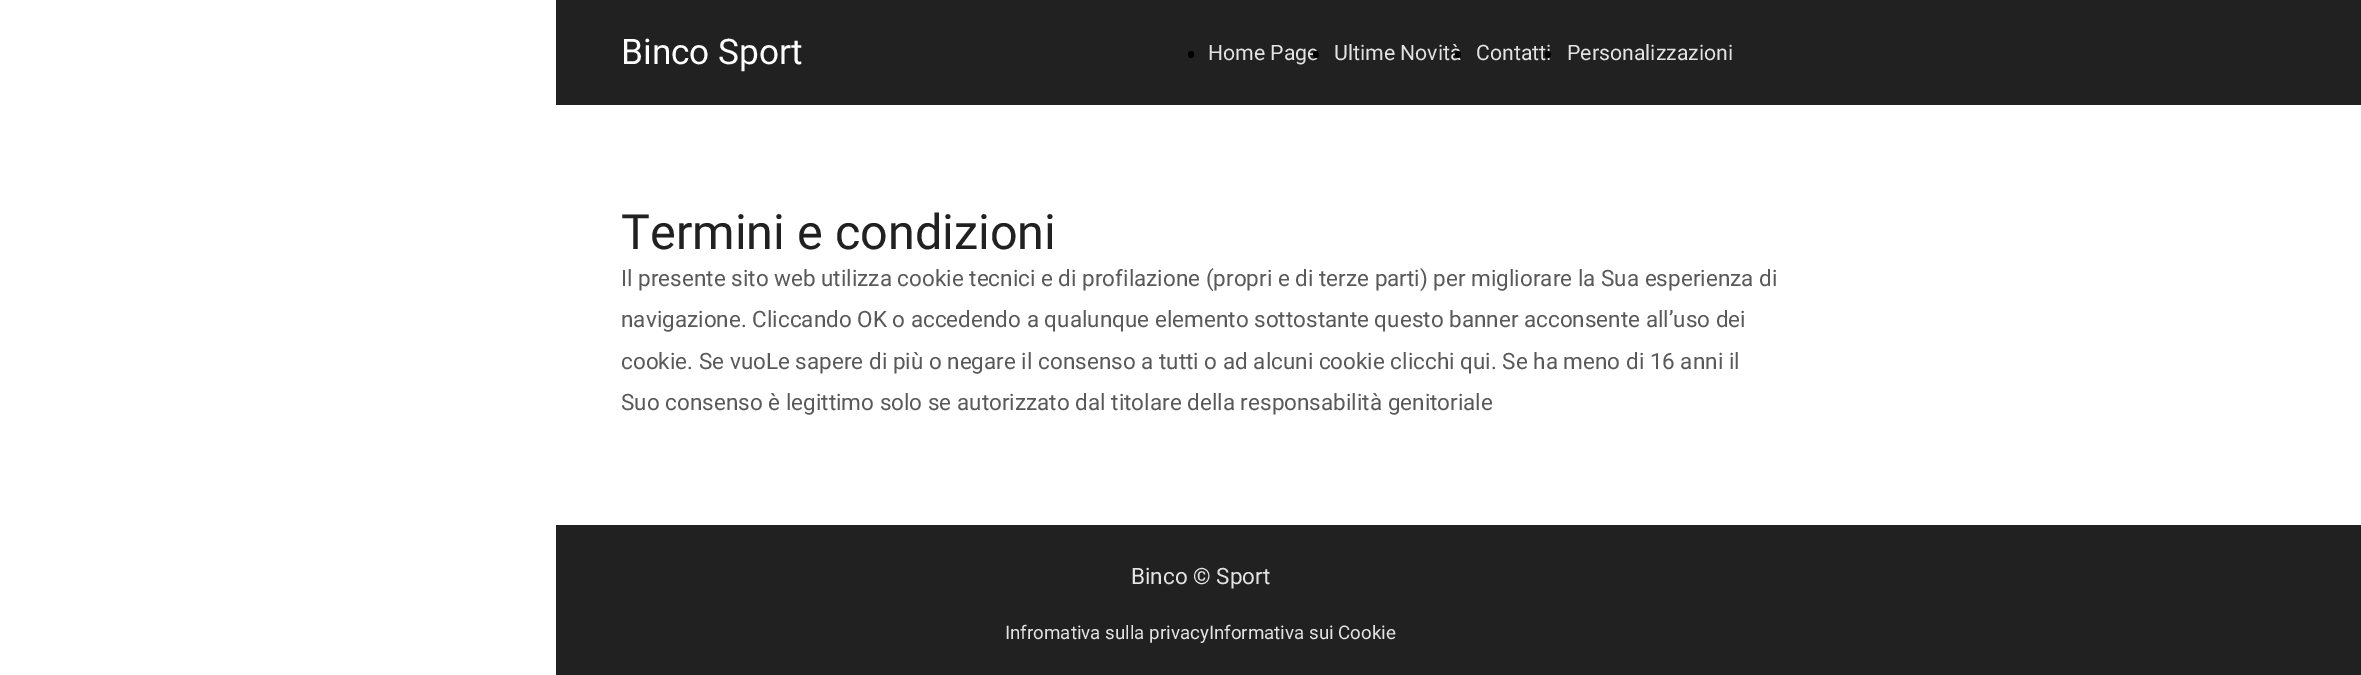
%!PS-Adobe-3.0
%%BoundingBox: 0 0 2361 675
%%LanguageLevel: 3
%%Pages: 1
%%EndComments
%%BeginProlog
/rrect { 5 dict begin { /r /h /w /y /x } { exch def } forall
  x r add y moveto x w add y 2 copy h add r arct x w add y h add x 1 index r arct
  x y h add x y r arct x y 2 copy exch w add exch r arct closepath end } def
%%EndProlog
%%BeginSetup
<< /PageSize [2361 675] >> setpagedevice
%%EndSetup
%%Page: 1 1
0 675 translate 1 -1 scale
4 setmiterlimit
1 setgray
0 0 2361 675 rectfill
0.129 setgray
556 0 1805 105 rectfill
0 setgray
1188 51 6 7 3 rrect fill
0.129 setgray
556 525 1805 150 rectfill
/Roboto-Regular [35.25 0 0 -35.25 0 0] selectfont
1 setgray
621 64 moveto (Binco Sport) show
/Roboto-Regular [21.25 0 0 -21.25 0 0] selectfont
0.89 setgray
1208 60 moveto (Home Page) show
0 setgray
1313 51 6 7 3 rrect fill
0.89 setgray
1334 60 moveto (Ultime Novità) show
0 setgray
1455 51 6 7 3 rrect fill
0.89 setgray
1476 60 moveto (Contatti) show
0 setgray
1545 51 6 7 3 rrect fill
0.89 setgray
1567 60 moveto (Personalizzazioni) show
/Roboto-Regular [48.5 0 0 -48.5 0 0] selectfont
0.129 setgray
621 249 moveto (Termini e condizioni) show
/Roboto-Regular [22.5 0 0 -22.5 0 0] selectfont
0.349 setgray
621 286 moveto (Il presente sito web utilizza cookie tecnici e di profilazione \(propri e di terze parti\) per migliorare la Sua esperienza di) show
621 327 moveto (navigazione. Cliccando OK o accedendo a qualunque elemento sottostante questo banner acconsente all’uso dei) show
621 369 moveto (cookie. Se vuoLe sapere di più o negare il consenso a tutti o ad alcuni cookie clicchi qui. Se ha meno di 16 anni il) show
621 410 moveto (Suo consenso è legittimo solo se autorizzato dal titolare della responsabilità genitoriale) show
0.89 setgray
1131 584 moveto (Binco © Sport) show
/Roboto-Regular [18.75 0 0 -18.75 0 0] selectfont
1005 639 moveto (Infromativa sulla privacyInformativa sui Cookie) show
showpage
%%EOF
